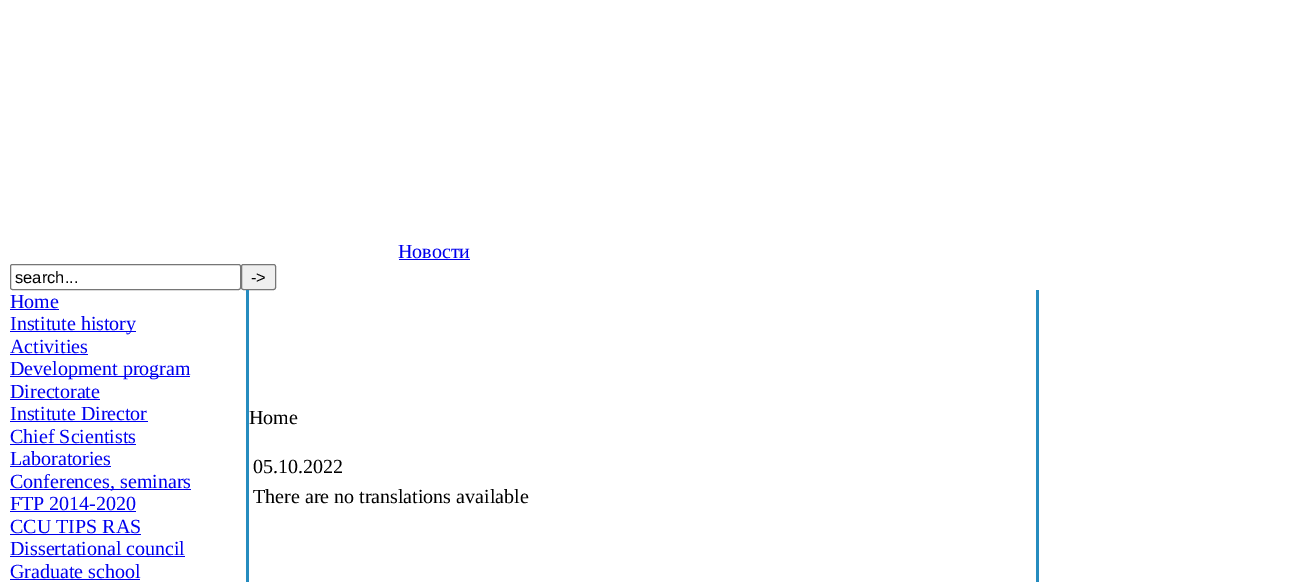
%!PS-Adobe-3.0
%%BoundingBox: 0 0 1291 582
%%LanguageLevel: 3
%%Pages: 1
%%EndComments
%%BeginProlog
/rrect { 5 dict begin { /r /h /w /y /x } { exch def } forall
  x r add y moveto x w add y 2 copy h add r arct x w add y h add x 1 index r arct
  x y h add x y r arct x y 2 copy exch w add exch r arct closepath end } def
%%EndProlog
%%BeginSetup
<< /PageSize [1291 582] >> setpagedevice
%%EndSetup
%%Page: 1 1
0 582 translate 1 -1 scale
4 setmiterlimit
1 setgray
0 0 1291 582 rectfill
0 0 0.933 setrgbcolor
399 259 71 1 rectfill
0.463 setgray
10.5 264.5 230 25 2 rrect stroke
0.937 setgray
241.5 264.5 34 25 2 rrect gsave fill grestore
0.463 setgray
stroke
0 0 0.933 setrgbcolor
10 309 49 1 rectfill
10 331 126 1 rectfill
10 354 78 1 rectfill
10 376 180 1 rectfill
10 399 90 1 rectfill
10 421 138 1 rectfill
10 444 126 1 rectfill
10 466 101 1 rectfill
10 489 181 1 rectfill
10 511 126 1 rectfill
10 534 131 1 rectfill
10 556 175 1 rectfill
10 579 130 1 rectfill
0.149 0.549 0.749 setrgbcolor
246 290 3 292 rectfill
1036 290 3 292 rectfill
/LiberationSerif-Regular [20 0 0 -20 0 0] selectfont
0 0 0.933 setrgbcolor
398 258 moveto (Новости) show
/LiberationSans-Regular [16.5 0 0 -16.5 0 0] selectfont
0 setgray
15 283 moveto (search...) show
251 283 moveto (->) show
/LiberationSerif-Regular [20 0 0 -20 0 0] selectfont
0 0 0.933 setrgbcolor
10 308 moveto (Home) show
10 330 moveto (Institute history) show
10 353 moveto (Activities) show
10 375 moveto (Development program) show
10 398 moveto (Directorate) show
10 420 moveto (Institute Director) show
10 443 moveto (Chief Scientists) show
10 465 moveto (Laboratories) show
10 488 moveto (Conferences, seminars) show
10 510 moveto (FTP 2014-2020) show
10 533 moveto (CCU TIPS RAS) show
10 555 moveto (Dissertational council) show
10 578 moveto (Graduate school) show
0 setgray
249 424 moveto (Home) show
253 473 moveto (05.10.2022) show
253 503 moveto (There are no translations available) show
showpage
%%EOF
